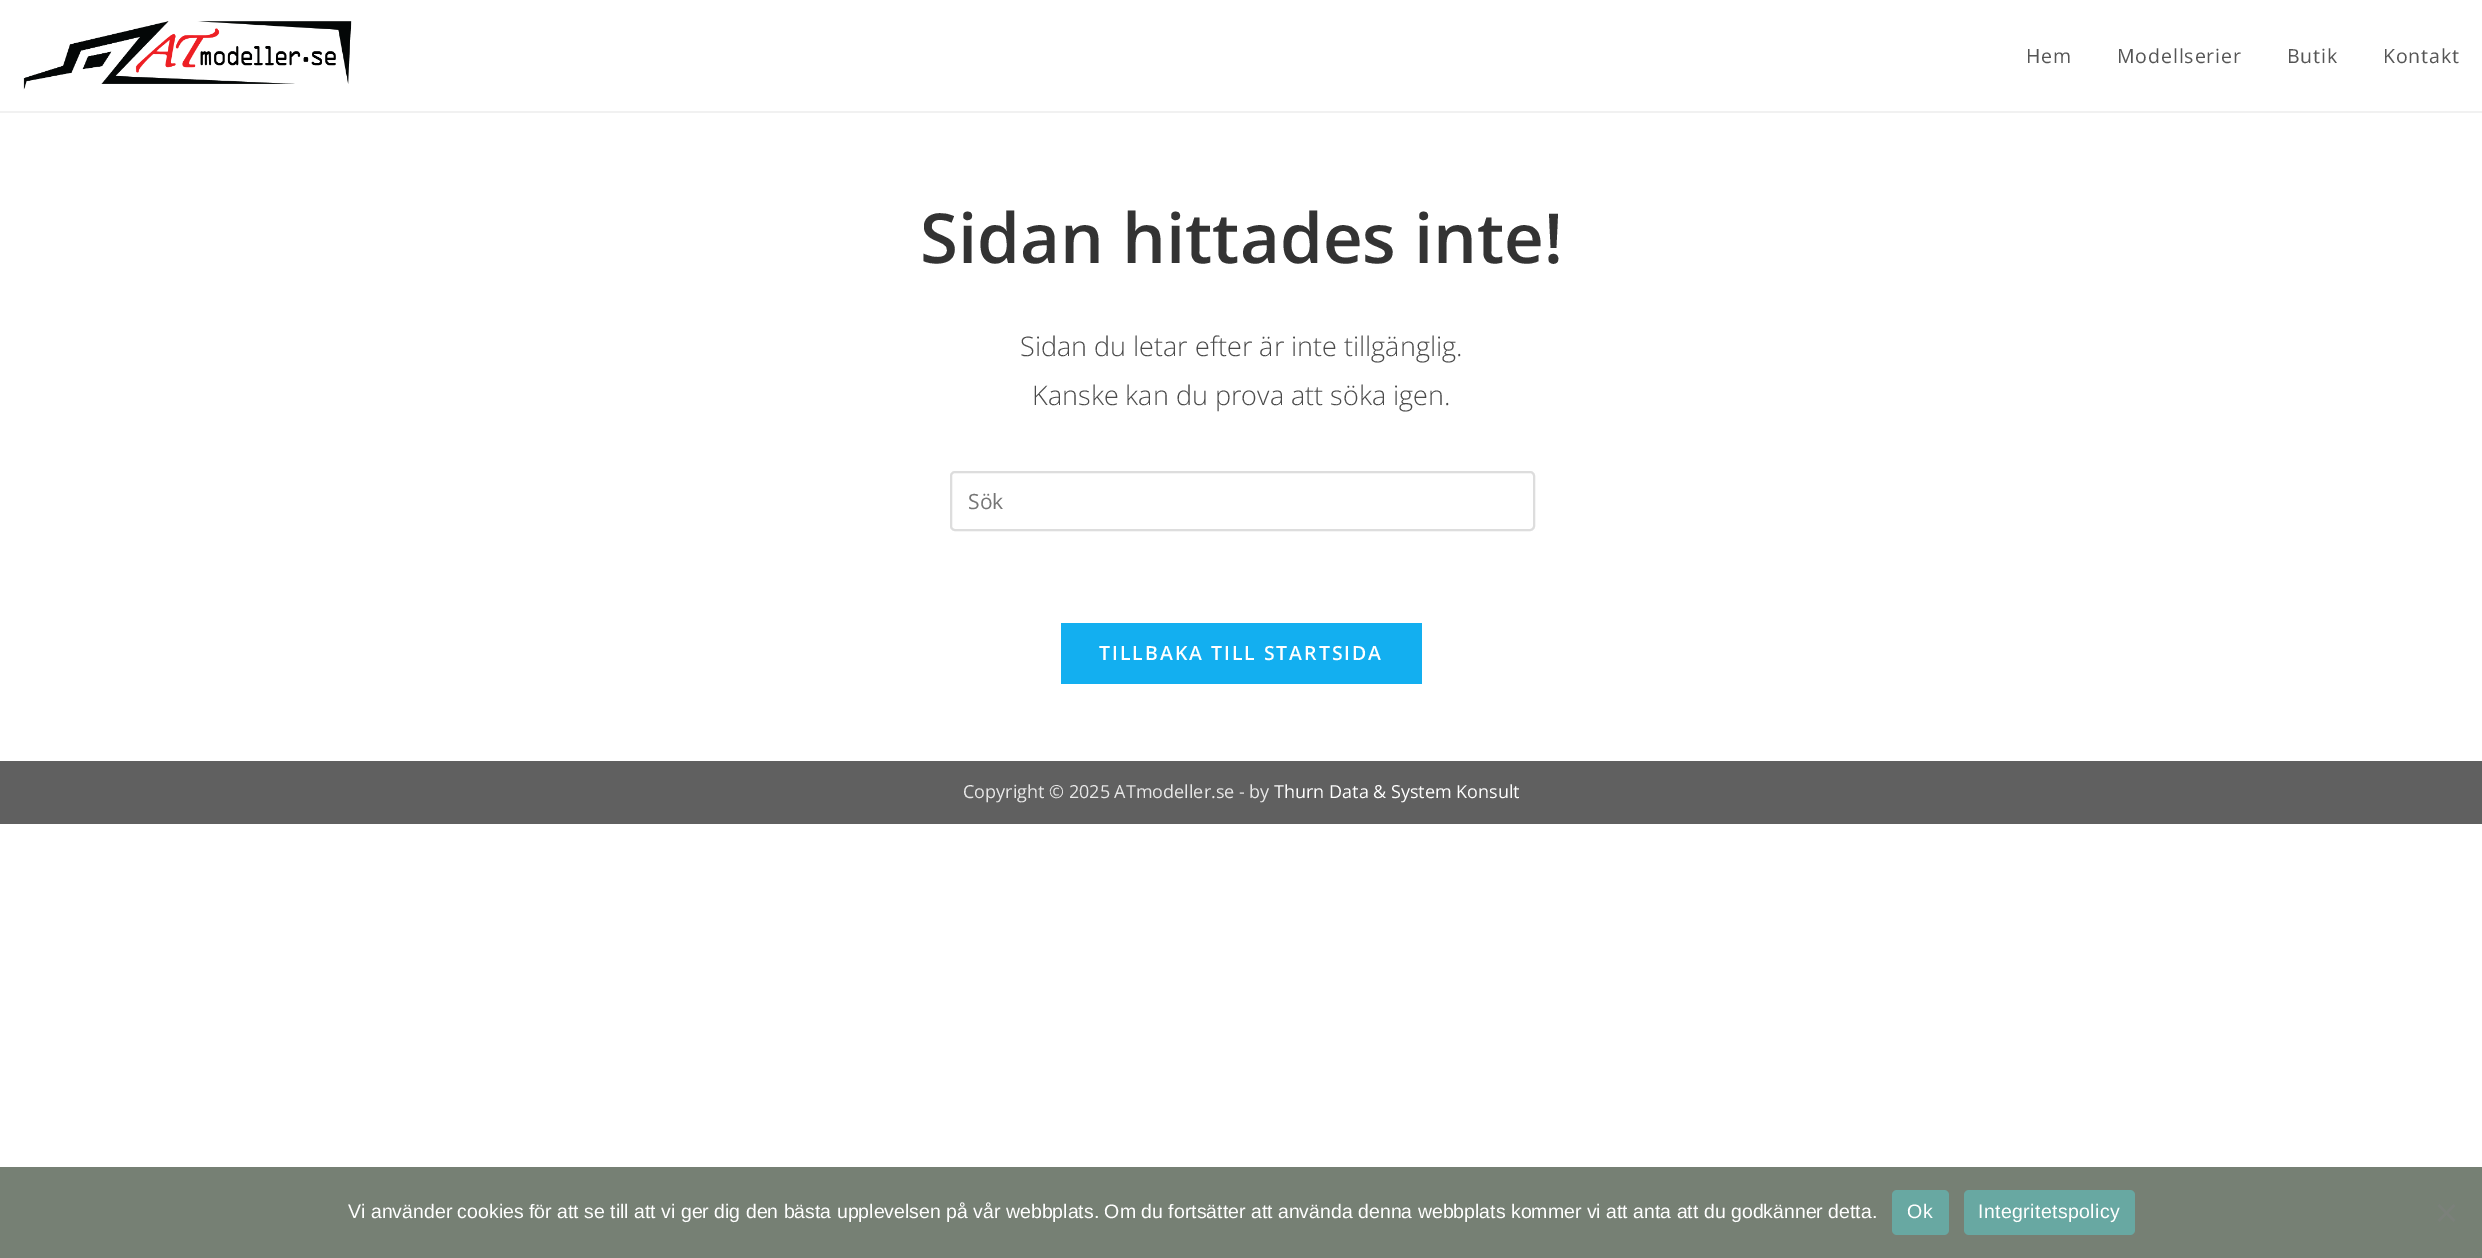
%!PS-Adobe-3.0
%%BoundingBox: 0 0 2482 1258
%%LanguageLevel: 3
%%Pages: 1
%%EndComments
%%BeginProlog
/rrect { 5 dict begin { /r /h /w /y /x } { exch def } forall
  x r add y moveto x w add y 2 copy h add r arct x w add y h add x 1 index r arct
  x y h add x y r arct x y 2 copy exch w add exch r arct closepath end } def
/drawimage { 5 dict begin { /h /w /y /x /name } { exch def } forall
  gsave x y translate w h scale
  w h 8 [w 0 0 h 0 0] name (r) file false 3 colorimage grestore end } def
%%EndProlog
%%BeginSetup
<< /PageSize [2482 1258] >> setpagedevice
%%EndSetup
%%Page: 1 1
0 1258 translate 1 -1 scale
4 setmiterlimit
1 setgray
0 0 2482 1258 rectfill
0.945 setgray
0 111 2482 2 rectfill
(images/1.raw) 23 21 329 69 drawimage
0.867 setgray
2 setlinewidth
951 472 583 58 4 rrect stroke
0.075 0.686 0.941 setrgbcolor
1061 623 361 61 rectfill
0.376 setgray
0 761 2482 63 rectfill
0.463 0.502 0.455 setrgbcolor
0 1167 2482 91 rectfill
0.408 0.659 0.635 setrgbcolor
1892 1190 57 45 5 rrect fill
1964 1190 171 45 5 rrect fill
0.482 0.502 0.478 setrgbcolor
newpath 2453.5 1204 moveto 2455.5 1206 lineto 2439.5 1222 lineto 2437.5 1220 lineto closepath fill
newpath 2437.5 1206 moveto 2439.5 1204 lineto 2455.5 1220 lineto 2453.5 1222 lineto closepath fill
/OpenSans-Regular [19.5 0 0 -19.5 0 0] selectfont
0.333 setgray
2026 63 moveto 0.9 0 (Hem) ashow
2117 63 moveto 0.9 0 (Modellserier) ashow
2287 63 moveto 0.9 0 (Butik) ashow
2383 63 moveto 0.9 0 (Kontakt) ashow
/OpenSans-SemiBold [69 0 0 -69 0 0] selectfont
0.2 setgray
920 263 moveto (Sidan hittades inte!) show
/OpenSans-Light [27 0 0 -27 0 0] selectfont
0.29 setgray
1020 356 moveto (Sidan du letar efter är inte tillgänglig.) show
1032 405 moveto (Kanske kan du prova att söka igen.) show
/OpenSans-Regular [21 0 0 -21 0 0] selectfont
0.459 setgray
968 509 moveto (Sök) show
/OpenSans-SemiBold [19.5 0 0 -19.5 0 0] selectfont
1 setgray
1099 660 moveto 1.95 0 (TILLBAKA TILL STARTSIDA) ashow
/OpenSans-Regular [18 0 0 -18 0 0] selectfont
0.91 setgray
963 798 moveto (Copyright © 2025 ATmodeller.se - by) show
1 setgray
1274 798 moveto (Thurn Data & System Konsult) show
/LiberationSans-Regular [19.5 0 0 -19.5 0 0] selectfont
348 1218 moveto (Vi använder cookies för att se till att vi ger dig den bästa upplevelsen på vår webbplats. Om du fortsätter att använda denna webbplats kommer vi att anta att du godkänner detta.) show
1907 1218 moveto 0.4 0 (Ok) ashow
1978 1218 moveto 0.4 0 (Integritetspolicy) ashow
showpage
%%EOF
